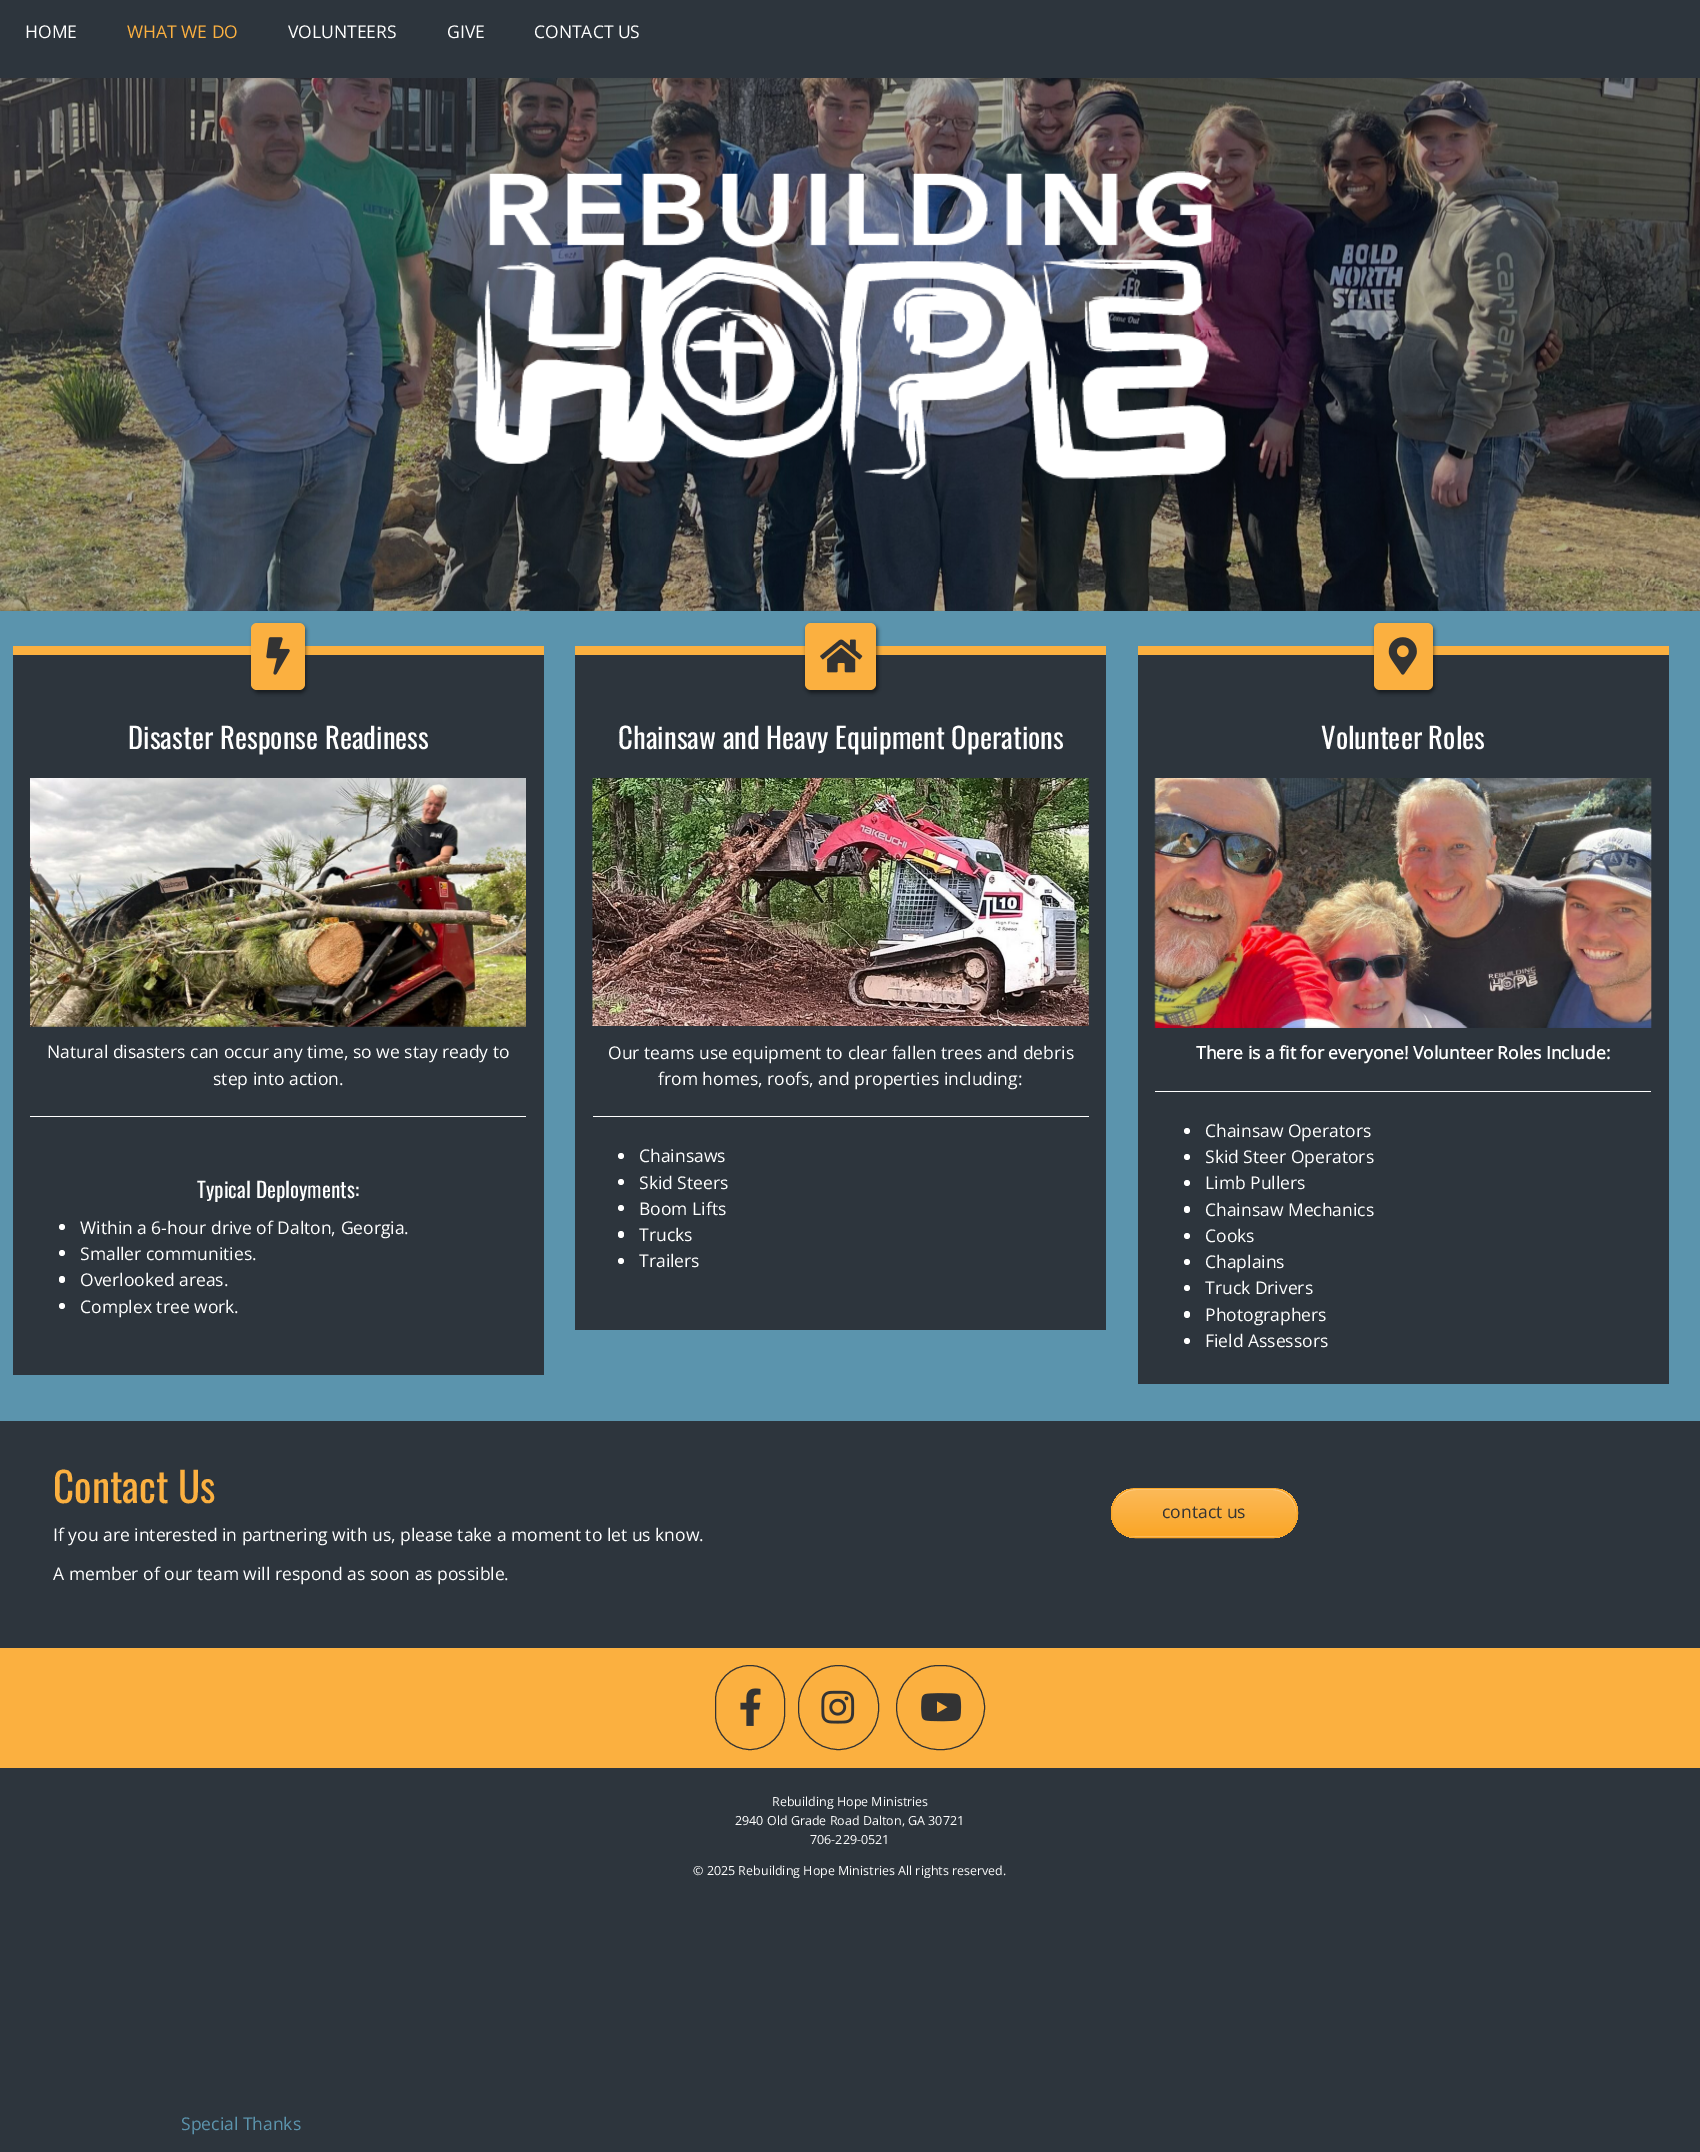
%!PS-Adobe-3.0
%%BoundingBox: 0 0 1700 2152
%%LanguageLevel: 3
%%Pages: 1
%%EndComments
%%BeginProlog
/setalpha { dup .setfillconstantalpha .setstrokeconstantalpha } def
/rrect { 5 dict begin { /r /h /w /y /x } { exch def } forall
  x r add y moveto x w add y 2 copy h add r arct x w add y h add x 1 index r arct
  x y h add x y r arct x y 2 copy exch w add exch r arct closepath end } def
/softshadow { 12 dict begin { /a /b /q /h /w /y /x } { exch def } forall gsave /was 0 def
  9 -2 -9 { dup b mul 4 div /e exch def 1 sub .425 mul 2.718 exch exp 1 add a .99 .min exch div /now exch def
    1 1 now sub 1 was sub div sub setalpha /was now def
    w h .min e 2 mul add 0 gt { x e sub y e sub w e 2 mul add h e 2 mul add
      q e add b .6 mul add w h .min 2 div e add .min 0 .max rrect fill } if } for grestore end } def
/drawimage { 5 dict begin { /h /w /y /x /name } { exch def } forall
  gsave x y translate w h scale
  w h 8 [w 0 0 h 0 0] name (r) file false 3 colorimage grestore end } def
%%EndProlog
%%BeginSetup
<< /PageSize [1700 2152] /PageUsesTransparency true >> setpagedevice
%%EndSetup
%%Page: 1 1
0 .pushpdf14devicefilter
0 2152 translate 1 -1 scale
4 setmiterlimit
0.176 0.208 0.239 setrgbcolor
0 0 1700 2152 rectfill
(images/1.raw) 0 78 1700 533 drawimage
(images/2.raw) 474 171 752 309 drawimage
0.357 0.58 0.678 setrgbcolor
0 611 1700 810 rectfill
0.176 0.208 0.239 setrgbcolor
13 655 531 720 rectfill
0.984 0.69 0.251 setrgbcolor
13 646 531 9 rectfill
0 setgray
253 625 53 68 6 2 0.5 softshadow
0.984 0.69 0.251 setrgbcolor
251 623 54 67 6 rrect fill
(images/3.raw) 266 637 24 38 drawimage
(images/4.raw) 30 778 496 249 drawimage
1 setgray
30 1116 496 1 rectfill
newpath 62 1227 3 0 360 arc closepath fill
newpath 62 1253 3 0 360 arc closepath fill
59 1276 6 7 3 rrect fill
newpath 62 1306 3 0 360 arc closepath fill
0.176 0.208 0.239 setrgbcolor
575 655 531 675 rectfill
0.984 0.69 0.251 setrgbcolor
575 646 531 9 rectfill
0 setgray
806 625 72 68 6 2 0.5 softshadow
0.984 0.69 0.251 setrgbcolor
805 623 71 67 6 rrect fill
(images/5.raw) 820 639 43 34 drawimage
(images/6.raw) 592 778 497 248 drawimage
1 setgray
593 1116 496 1 rectfill
newpath 621 1156 3 0 360 arc closepath fill
newpath 621 1182 3 0 360 arc closepath fill
newpath 621 1208 3 0 360 arc closepath fill
618 1231 6 7 3 rrect fill
newpath 621 1261 3 0 360 arc closepath fill
0.176 0.208 0.239 setrgbcolor
1138 655 531 729 rectfill
0.984 0.69 0.251 setrgbcolor
1138 646 531 9 rectfill
0 setgray
1375 625 59 68 6 2 0.5 softshadow
0.984 0.69 0.251 setrgbcolor
1374 623 59 67 6 rrect fill
(images/7.raw) 1388 637 29 38 drawimage
(images/8.raw) 1154 778 498 250 drawimage
1 setgray
1155 1091 496 1 rectfill
newpath 1187 1131 3 0 360 arc closepath fill
newpath 1187 1157 3 0 360 arc closepath fill
newpath 1187 1183 3 0 360 arc closepath fill
1184 1206 6 7 3 rrect fill
newpath 1187 1236 3 0 360 arc closepath fill
newpath 1187 1262 3 0 360 arc closepath fill
newpath 1187 1288 3 0 360 arc closepath fill
1184 1311 6 7 3 rrect fill
newpath 1187 1341 3 0 360 arc closepath fill
gsave
1111 1488 187 50 25 rrect clip newpath
gsave newpath 1111 1489 moveto 1298 1489 lineto 1298 1536 lineto 1111 1536 lineto closepath clip newpath
<< /ShadingType 2 /ColorSpace /DeviceRGB /Coords [1204 1489 1204 1536] /Extend [true true] /Function << /FunctionType 2 /Domain [0 1] /C0 [0.988 0.729 0.349] /C1 [0.98 0.651 0.153] /N 1 >> >> shfill grestore
gsave newpath 1126 1536 moveto 1283 1536 lineto 1283 1538 lineto 1126 1538 lineto closepath clip newpath
<< /ShadingType 2 /ColorSpace /DeviceRGB /Coords [1204 1536 1204 1584] /Extend [true true] /Function << /FunctionType 2 /Domain [0 1] /C0 [0.988 0.729 0.349] /C1 [0.98 0.651 0.153] /N 1 >> >> shfill grestore
grestore
0.3 setalpha
newpath 1136 1490 moveto 1272 1490 lineto 1286 1490 1296 1501 1296 1513 curveto 1296 1512 lineto 1296 1500 1285 1489 1272 1489 curveto 1136 1489 lineto 1128 1489 1120 1494 1116 1501 curveto 1121 1494 1128 1490 1136 1490 curveto closepath fill
1 setalpha
0.98 0.651 0.153 setrgbcolor
1111.5 1488.5 186 49 24.5 rrect stroke
0.984 0.69 0.251 setrgbcolor
0 1648 1700 120 rectfill
0.2 setgray
715.5 1665.5 69 84 34.5 rrect stroke
(images/9.raw) 740 1688 21 38 drawimage
798.5 1665.5 80 84 40 rrect stroke
(images/10.raw) 821 1690 34 34 drawimage
896.5 1665.5 88 84 42 rrect stroke
(images/11.raw) 921 1693 41 29 drawimage
/OpenSans-Regular [17.5 0 0 -17.5 0 0] selectfont
1 setgray
25 38 moveto (HOME) show
0.984 0.69 0.251 setrgbcolor
127 38 moveto (WHAT WE DO) show
1 setgray
288 38 moveto (VOLUNTEERS) show
447 38 moveto (GIVE) show
534 38 moveto (CONTACT US) show
/Oswald-Regular [28.75 0 0 -28.75 0 0] selectfont
128 749 moveto (Disaster Response Readiness) show
/OpenSans-Regular [17.5 0 0 -17.5 0 0] selectfont
47 1058 moveto (Natural disasters can occur any time, so we stay ready to) show
213 1085 moveto (step into action.) show
/Oswald-Regular [21.25 0 0 -21.25 0 0] selectfont
197 1198 moveto (Typical Deployments:) show
/OpenSans-Regular [17.5 0 0 -17.5 0 0] selectfont
80 1234 moveto (Within a 6-hour drive of Dalton, Georgia.) show
80 1260 moveto (Smaller communities.) show
80 1286 moveto (Overlooked areas.) show
80 1313 moveto (Complex tree work.) show
/Oswald-Regular [28.75 0 0 -28.75 0 0] selectfont
618 749 moveto (Chainsaw and Heavy Equipment Operations) show
/OpenSans-Regular [17.5 0 0 -17.5 0 0] selectfont
608 1059 moveto (Our teams use equipment to clear fallen trees and debris) show
658 1085 moveto (from homes, roofs, and properties including:) show
639 1162 moveto (Chainsaws) show
639 1189 moveto (Skid Steers) show
639 1215 moveto (Boom Lifts) show
639 1241 moveto (Trucks) show
639 1267 moveto (Trailers) show
/Oswald-Regular [28.75 0 0 -28.75 0 0] selectfont
1321 749 moveto (Volunteer Roles) show
/OpenSans-Bold [17.5 0 0 -17.5 0 0] selectfont
1196 1059 moveto (There is a fit for everyone! Volunteer Roles Include:) show
/OpenSans-Regular [17.5 0 0 -17.5 0 0] selectfont
1205 1137 moveto (Chainsaw Operators) show
1205 1163 moveto (Skid Steer Operators) show
1205 1189 moveto (Limb Pullers) show
1205 1216 moveto (Chainsaw Mechanics) show
1205 1242 moveto (Cooks) show
1205 1268 moveto (Chaplains) show
1205 1294 moveto (Truck Drivers) show
1205 1321 moveto (Photographers) show
1205 1347 moveto (Field Assessors) show
/Oswald-Regular [41 0 0 -41 0 0] selectfont
0.984 0.69 0.251 setrgbcolor
53 1503 moveto (Contact Us) show
/OpenSans-Regular [17.5 0 0 -17.5 0 0] selectfont
1 setgray
53 1541 moveto (If you are interested in partnering with us, please take a moment to let us know.) show
53 1580 moveto (A member of our team will respond as soon as possible.) show
0.2 setgray
1162 1518 moveto (contact us) show
/OpenSans-Regular [12.5 0 0 -12.5 0 0] selectfont
1 setgray
772 1806 moveto (Rebuilding Hope Ministries) show
735 1825 moveto (2940 Old Grade Road Dalton, GA 30721) show
810 1844 moveto (706-229-0521) show
693 1875 moveto (© 2025 Rebuilding Hope Ministries All rights reserved.) show
/OpenSans-Regular [17.5 0 0 -17.5 0 0] selectfont
0.357 0.58 0.678 setrgbcolor
181 2130 moveto (Special Thanks) show
.poppdf14devicefilter showpage
%%EOF
